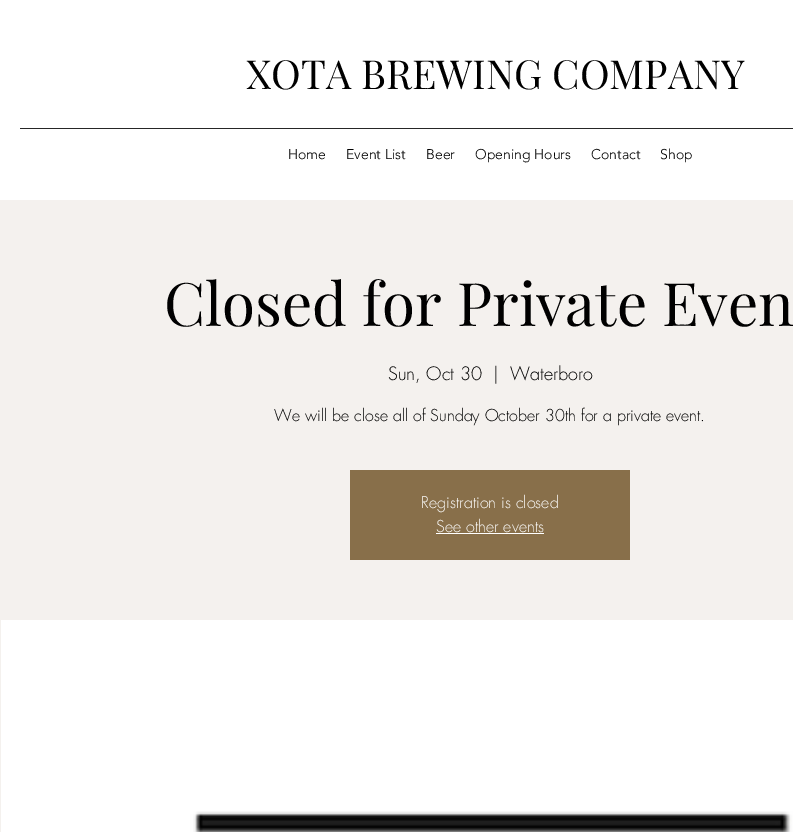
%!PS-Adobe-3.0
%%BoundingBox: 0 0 793 832
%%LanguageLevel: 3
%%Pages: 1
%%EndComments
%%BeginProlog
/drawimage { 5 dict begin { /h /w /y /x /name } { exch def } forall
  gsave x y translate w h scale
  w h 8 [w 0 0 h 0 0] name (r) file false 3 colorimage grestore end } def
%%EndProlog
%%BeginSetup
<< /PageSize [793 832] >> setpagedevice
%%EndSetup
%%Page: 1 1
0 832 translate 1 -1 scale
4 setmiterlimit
1 setgray
0 0 793 832 rectfill
0.149 setgray
20 128 773 1 rectfill
0.957 0.945 0.933 setrgbcolor
0 200 793 632 rectfill
0.533 0.435 0.29 setrgbcolor
350 470 280 90 rectfill
1 setgray
436 533 108 1 rectfill
(images/1.raw) 1 620 792 212 drawimage
/PlayfairDisplay-Regular [40 0 0 -40 0 0] selectfont
0 setgray
246 89 moveto (XOTA BREWING COMPANY) show
/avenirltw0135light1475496-Light [14 0 0 -14 0 0] selectfont
288 159 moveto (Home) show
346 159 moveto (Event List) show
426 159 moveto (Beer) show
475 159 moveto (Opening Hours) show
591 159 moveto (Contact) show
660 159 moveto (Shop) show
/PlayfairDisplay-Regular [60 0 0 -60 0 0] selectfont
164 326 moveto (Closed for Private Even) show
/futura-Light [18 0 0 -18 0 0] selectfont
388 380 moveto (Sun, Oct 30) show
493 380 moveto (|) show
510 380 moveto (Waterboro) show
/futura-Light [16 0 0 -16 0 0] selectfont
274 421 moveto (We will be close all of Sunday October 30th for a private event.) show
1 setgray
421 508 moveto (Registration is closed) show
436 532 moveto (See other events) show
showpage
%%EOF
